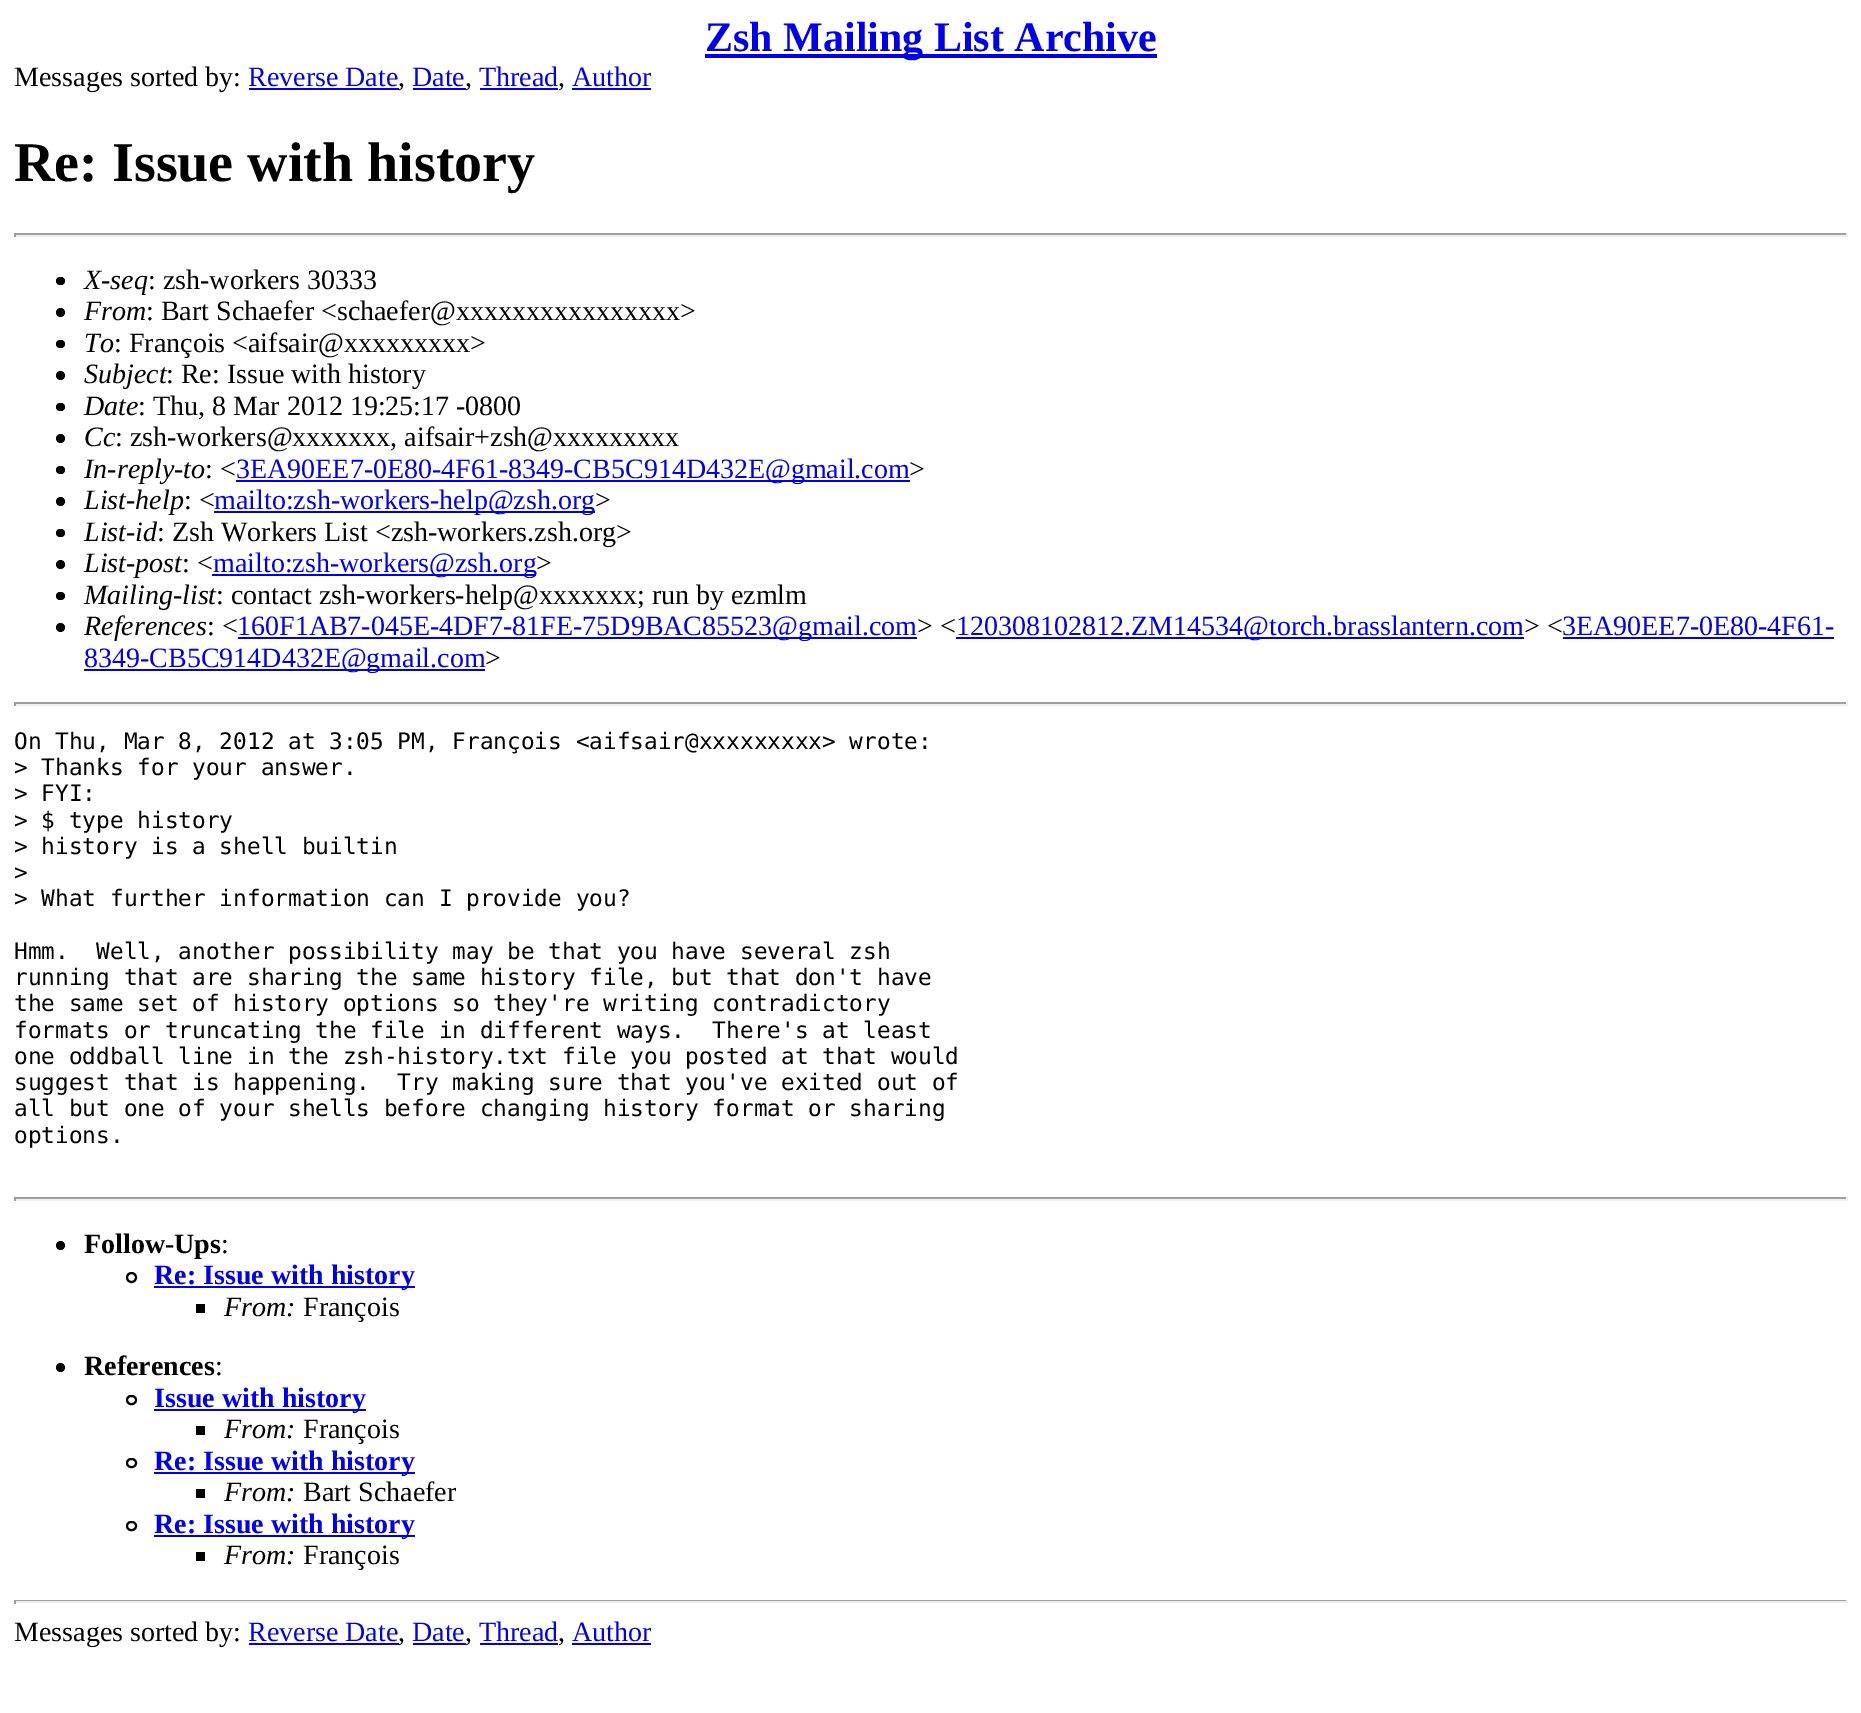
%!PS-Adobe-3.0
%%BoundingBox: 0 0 1861 1713
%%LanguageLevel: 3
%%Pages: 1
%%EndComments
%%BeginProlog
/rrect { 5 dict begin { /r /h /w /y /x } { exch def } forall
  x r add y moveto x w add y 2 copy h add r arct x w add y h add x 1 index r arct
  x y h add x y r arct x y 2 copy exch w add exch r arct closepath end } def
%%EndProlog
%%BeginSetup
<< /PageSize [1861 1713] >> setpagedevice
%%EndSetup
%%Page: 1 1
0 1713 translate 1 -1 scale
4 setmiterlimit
1 setgray
0 0 1861 1713 rectfill
0 0 0.933 setrgbcolor
705 54 452 4 rectfill
249 88 150 2 rectfill
413 88 53 2 rectfill
480 88 78 2 rectfill
572 88 79 2 rectfill
0.624 setgray
14 233 1834 2 rectfill
0.933 setgray
1846 233 2 4 rectfill
14 235 1834 2 rectfill
0.624 setgray
14 233 2 4 rectfill
0 setgray
56 277 9 8 4 rrect fill
newpath 60.5 312.5 4.5 0 360 arc closepath fill
56 340 9 8 4 rrect fill
newpath 60.5 375.5 4.5 0 360 arc closepath fill
56 403 9 8 4 rrect fill
newpath 60.5 438.5 4.5 0 360 arc closepath fill
56 466 9 8 4 rrect fill
0 0 0.933 setrgbcolor
236 480 674 2 rectfill
0 setgray
newpath 60.5 501.5 4.5 0 360 arc closepath fill
0 0 0.933 setrgbcolor
214 511 381 2 rectfill
0 setgray
56 529 9 8 4 rrect fill
newpath 60.5 564.5 4.5 0 360 arc closepath fill
0 0 0.933 setrgbcolor
212 574 324 2 rectfill
0 setgray
56 592 9 8 4 rrect fill
newpath 60.5 627.5 4.5 0 360 arc closepath fill
0 0 0.933 setrgbcolor
238 637 679 2 rectfill
956 637 568 2 rectfill
1563 637 271 2 rectfill
84 669 401 2 rectfill
0.624 setgray
14 702 1834 2 rectfill
0.933 setgray
1846 702 2 4 rectfill
14 704 1834 2 rectfill
0.624 setgray
14 702 2 4 rectfill
14 1197 1834 2 rectfill
0.933 setgray
1846 1197 2 4 rectfill
14 1199 1834 2 rectfill
0.624 setgray
14 1197 2 4 rectfill
0 setgray
newpath 60.5 1245.5 4.5 0 360 arc closepath fill
2 setlinewidth
newpath 131.5 1277.5 4.5 0 360 arc closepath stroke
0 0 0.933 setrgbcolor
154 1286 261 2 rectfill
0 setgray
196 1304 9 9 rectfill
newpath 60.5 1367.5 4.5 0 360 arc closepath fill
127 1396 9 8 4 rrect stroke
0 0 0.933 setrgbcolor
154 1409 212 2 rectfill
0 setgray
196 1426 9 9 rectfill
127 1459 9 8 4 rrect stroke
0 0 0.933 setrgbcolor
154 1472 261 2 rectfill
0 setgray
196 1489 9 9 rectfill
127 1522 9 8 4 rrect stroke
0 0 0.933 setrgbcolor
154 1535 261 2 rectfill
0 setgray
196 1552 9 9 rectfill
0.624 setgray
14 1600 1834 1 rectfill
0.933 setgray
1846 1600 2 4 rectfill
14 1601 1834 2 rectfill
0.624 setgray
14 1600 2 4 rectfill
0 0 0.933 setrgbcolor
249 1643 150 2 rectfill
413 1643 53 2 rectfill
480 1643 78 2 rectfill
572 1643 79 2 rectfill
/LiberationSerif-Bold [42 0 0 -42 0 0] selectfont
705 51 moveto (Zsh Mailing List Archive) show
/LiberationSerif-Regular [28 0 0 -28 0 0] selectfont
0 setgray
14 86 moveto (Messages sorted by:) show
0 0 0.933 setrgbcolor
248 86 moveto (Reverse Date) show
0 setgray
398 86 moveto (,) show
0 0 0.933 setrgbcolor
412 86 moveto (Date) show
0 setgray
465 86 moveto (,) show
0 0 0.933 setrgbcolor
479 86 moveto (Thread) show
0 setgray
558 86 moveto (,) show
0 0 0.933 setrgbcolor
572 86 moveto (Author) show
/LiberationSerif-Bold [56 0 0 -56 0 0] selectfont
0 setgray
14 181 moveto (Re: Issue with history) show
/LiberationSerif-Italic [28 0 0 -28 0 0] selectfont
84 289 moveto (X-seq) show
/LiberationSerif-Regular [28 0 0 -28 0 0] selectfont
148 289 moveto (: zsh-workers 30333) show
/LiberationSerif-Italic [28 0 0 -28 0 0] selectfont
84 320 moveto (From) show
/LiberationSerif-Regular [28 0 0 -28 0 0] selectfont
146 320 moveto (: Bart Schaefer <schaefer@xxxxxxxxxxxxxxxx>) show
/LiberationSerif-Italic [28 0 0 -28 0 0] selectfont
84 352 moveto (To) show
/LiberationSerif-Regular [28 0 0 -28 0 0] selectfont
114 352 moveto (: François <aifsair@xxxxxxxxx>) show
/LiberationSerif-Italic [28 0 0 -28 0 0] selectfont
84 383 moveto (Subject) show
/LiberationSerif-Regular [28 0 0 -28 0 0] selectfont
166 383 moveto (: Re: Issue with history) show
/LiberationSerif-Italic [28 0 0 -28 0 0] selectfont
84 415 moveto (Date) show
/LiberationSerif-Regular [28 0 0 -28 0 0] selectfont
138 415 moveto (: Thu, 8 Mar 2012 19:25:17 -0800) show
/LiberationSerif-Italic [28 0 0 -28 0 0] selectfont
84 446 moveto (Cc) show
/LiberationSerif-Regular [28 0 0 -28 0 0] selectfont
115 446 moveto (: zsh-workers@xxxxxxx, aifsair+zsh@xxxxxxxxx) show
/LiberationSerif-Italic [28 0 0 -28 0 0] selectfont
84 478 moveto (In-reply-to) show
/LiberationSerif-Regular [28 0 0 -28 0 0] selectfont
205 478 moveto (: <) show
0 0 0.933 setrgbcolor
236 478 moveto (3EA90EE7-0E80-4F61-8349-CB5C914D432E@gmail.com) show
0 setgray
909 478 moveto (>) show
/LiberationSerif-Italic [28 0 0 -28 0 0] selectfont
84 509 moveto (List-help) show
/LiberationSerif-Regular [28 0 0 -28 0 0] selectfont
184 509 moveto (: <) show
0 0 0.933 setrgbcolor
214 509 moveto (mailto:zsh-workers-help@zsh.org) show
0 setgray
595 509 moveto (>) show
/LiberationSerif-Italic [28 0 0 -28 0 0] selectfont
84 541 moveto (List-id) show
/LiberationSerif-Regular [28 0 0 -28 0 0] selectfont
157 541 moveto (: Zsh Workers List <zsh-workers.zsh.org>) show
/LiberationSerif-Italic [28 0 0 -28 0 0] selectfont
84 572 moveto (List-post) show
/LiberationSerif-Regular [28 0 0 -28 0 0] selectfont
182 572 moveto (: <) show
0 0 0.933 setrgbcolor
213 572 moveto (mailto:zsh-workers@zsh.org) show
0 setgray
536 572 moveto (>) show
/LiberationSerif-Italic [28 0 0 -28 0 0] selectfont
84 604 moveto (Mailing-list) show
/LiberationSerif-Regular [28 0 0 -28 0 0] selectfont
216 604 moveto (: contact zsh-workers-help@xxxxxxx; run by ezmlm) show
/LiberationSerif-Italic [28 0 0 -28 0 0] selectfont
84 635 moveto (References) show
/LiberationSerif-Regular [28 0 0 -28 0 0] selectfont
207 635 moveto (: <) show
0 0 0.933 setrgbcolor
237 635 moveto (160F1AB7-045E-4DF7-81FE-75D9BAC85523@gmail.com) show
0 setgray
917 635 moveto (> <) show
0 0 0.933 setrgbcolor
956 635 moveto (120308102812.ZM14534@torch.brasslantern.com) show
0 setgray
1524 635 moveto (> <) show
0 0 0.933 setrgbcolor
1562 635 moveto (3EA90EE7-0E80-4F61-) show
84 667 moveto (8349-CB5C914D432E@gmail.com) show
0 setgray
485 667 moveto (>) show
/DejaVuSansMono-Regular [22.75 0 0 -22.75 0 0] selectfont
14 749 moveto (On Thu, Mar 8, 2012 at 3:05 PM, François <aifsair@xxxxxxxxx> wrote:) show
14 775 moveto (> Thanks for your answer.) show
14 801 moveto (> FYI:) show
14 828 moveto (> $ type history) show
14 854 moveto (> history is a shell builtin) show
14 880 moveto (>) show
14 906 moveto (> What further information can I provide you?) show
14 959 moveto (Hmm.  Well, another possibility may be that you have several zsh) show
14 985 moveto (running that are sharing the same history file, but that don't have) show
14 1011 moveto (the same set of history options so they're writing contradictory) show
14 1038 moveto (formats or truncating the file in different ways.  There's at least) show
14 1064 moveto (one oddball line in the zsh-history.txt file you posted at that would) show
14 1090 moveto (suggest that is happening.  Try making sure that you've exited out of) show
14 1116 moveto (all but one of your shells before changing history format or sharing) show
14 1143 moveto (options.) show
/LiberationSerif-Bold [28 0 0 -28 0 0] selectfont
84 1253 moveto (Follow-Ups) show
/LiberationSerif-Regular [28 0 0 -28 0 0] selectfont
221 1253 moveto (:) show
/LiberationSerif-Bold [28 0 0 -28 0 0] selectfont
0 0 0.933 setrgbcolor
154 1284 moveto (Re: Issue with history) show
/LiberationSerif-Italic [28 0 0 -28 0 0] selectfont
0 setgray
224 1316 moveto (From:) show
/LiberationSerif-Regular [28 0 0 -28 0 0] selectfont
303 1316 moveto (François) show
/LiberationSerif-Bold [28 0 0 -28 0 0] selectfont
84 1375 moveto (References) show
/LiberationSerif-Regular [28 0 0 -28 0 0] selectfont
215 1375 moveto (:) show
/LiberationSerif-Bold [28 0 0 -28 0 0] selectfont
0 0 0.933 setrgbcolor
154 1407 moveto (Issue with history) show
/LiberationSerif-Italic [28 0 0 -28 0 0] selectfont
0 setgray
224 1438 moveto (From:) show
/LiberationSerif-Regular [28 0 0 -28 0 0] selectfont
303 1438 moveto (François) show
/LiberationSerif-Bold [28 0 0 -28 0 0] selectfont
0 0 0.933 setrgbcolor
154 1470 moveto (Re: Issue with history) show
/LiberationSerif-Italic [28 0 0 -28 0 0] selectfont
0 setgray
224 1501 moveto (From:) show
/LiberationSerif-Regular [28 0 0 -28 0 0] selectfont
303 1501 moveto (Bart Schaefer) show
/LiberationSerif-Bold [28 0 0 -28 0 0] selectfont
0 0 0.933 setrgbcolor
154 1533 moveto (Re: Issue with history) show
/LiberationSerif-Italic [28 0 0 -28 0 0] selectfont
0 setgray
224 1564 moveto (From:) show
/LiberationSerif-Regular [28 0 0 -28 0 0] selectfont
303 1564 moveto (François) show
14 1641 moveto (Messages sorted by:) show
0 0 0.933 setrgbcolor
248 1641 moveto (Reverse Date) show
0 setgray
398 1641 moveto (,) show
0 0 0.933 setrgbcolor
412 1641 moveto (Date) show
0 setgray
465 1641 moveto (,) show
0 0 0.933 setrgbcolor
479 1641 moveto (Thread) show
0 setgray
558 1641 moveto (,) show
0 0 0.933 setrgbcolor
572 1641 moveto (Author) show
showpage
%%EOF
